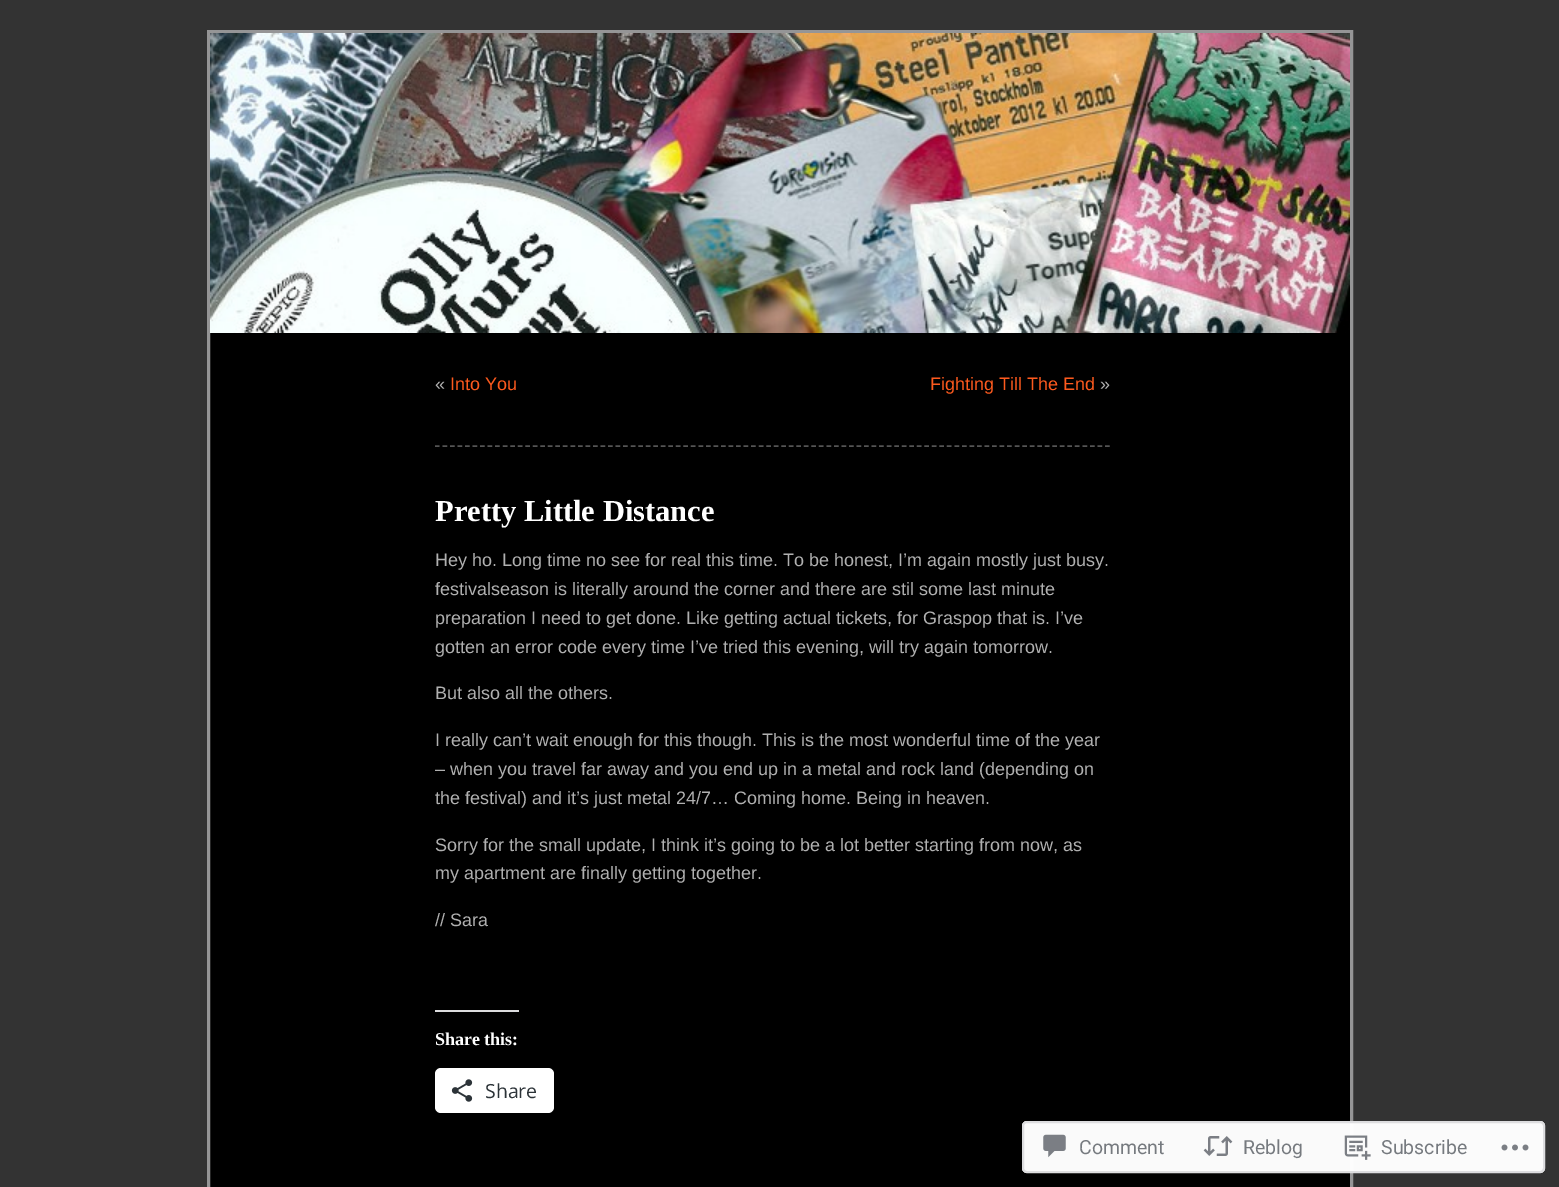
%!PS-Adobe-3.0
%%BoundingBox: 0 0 1559 1187
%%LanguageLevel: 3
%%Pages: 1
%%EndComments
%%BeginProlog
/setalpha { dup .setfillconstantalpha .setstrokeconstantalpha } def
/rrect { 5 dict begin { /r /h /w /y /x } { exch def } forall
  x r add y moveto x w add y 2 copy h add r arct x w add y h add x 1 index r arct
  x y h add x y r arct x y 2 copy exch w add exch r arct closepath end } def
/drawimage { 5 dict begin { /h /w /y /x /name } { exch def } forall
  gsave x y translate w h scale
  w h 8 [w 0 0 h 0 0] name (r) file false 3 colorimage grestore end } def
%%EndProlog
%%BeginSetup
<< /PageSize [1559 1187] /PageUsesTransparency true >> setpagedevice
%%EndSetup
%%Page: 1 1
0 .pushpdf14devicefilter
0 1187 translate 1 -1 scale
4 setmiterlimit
0.2 setgray
0 0 1559 1187 rectfill
0 setgray
210 333 1140 854 rectfill
0.584 0.584 0.588 setrgbcolor
3 setlinewidth
208.5 31.5 1143 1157 rectstroke
(images/1.raw) 210 33 1140 300 drawimage
0.333 setgray
1.5 setlinewidth
[4.5 3.03] 0 setdash
newpath 435 446 moveto 1110 446 lineto stroke
0.863 0.863 0.871 setrgbcolor
435 1010 84 2 rectfill
1 setgray
435 1068 119 45 6 rrect fill
(images/2.raw) 451 1079 22 23 drawimage
0.98 setalpha
1022 1121 523 52 5 rrect fill
0.863 0.863 0.871 setrgbcolor
2 setlinewidth
[] 0 setdash
1023 1122 521 50 4 rrect stroke
1 setalpha
(images/3.raw) 1043 1134 23 24 drawimage
(images/4.raw) 1203 1136 30 20 drawimage
(images/5.raw) 1344 1135 27 25 drawimage
(images/6.raw) 1501 1144 28 7 drawimage
/LiberationSans-Regular [18 0 0 -18 0 0] selectfont
0.69 setgray
435 390 moveto («) show
0.992 0.353 0.118 setrgbcolor
450 390 moveto (Into You) show
930 390 moveto (Fighting Till The End) show
0.69 setgray
1100 390 moveto (») show
/LiberationSerif-Bold [30.5 0 0 -30.5 0 0] selectfont
1 setgray
435 521 moveto (Pretty Little Distance) show
/LiberationSans-Regular [18 0 0 -18 0 0] selectfont
0.69 setgray
435 566 moveto (Hey ho. Long time no see for real this time. To be honest, I’m again mostly just busy.) show
435 595 moveto (festivalseason is literally around the corner and there are stil some last minute) show
435 624 moveto (preparation I need to get done. Like getting actual tickets, for Graspop that is. I’ve) show
435 653 moveto (gotten an error code every time I’ve tried this evening, will try again tomorrow.) show
435 699 moveto (But also all the others.) show
435 746 moveto (I really can’t wait enough for this though. This is the most wonderful time of the year) show
435 775 moveto (– when you travel far away and you end up in a metal and rock land \(depending on) show
435 804 moveto (the festival\) and it’s just metal 24/7… Coming home. Being in heaven.) show
435 851 moveto (Sorry for the small update, I think it’s going to be a lot better starting from now, as) show
435 879 moveto (my apartment are finally getting together.) show
435 926 moveto (// Sara) show
/LiberationSerif-Bold [18 0 0 -18 0 0] selectfont
1 setgray
435 1045 moveto (Share this:) show
/OpenSans-Regular [19.5 0 0 -19.5 0 0] selectfont
0.173 0.2 0.22 setrgbcolor
485 1098 moveto (Share) show
/Roboto-Regular [19.5 0 0 -19.5 0 0] selectfont
0.463 0.478 0.498 setrgbcolor
1079 1154 moveto (Comment) show
1243 1154 moveto (Reblog) show
1381 1154 moveto (Subscribe) show
.poppdf14devicefilter showpage
%%EOF
